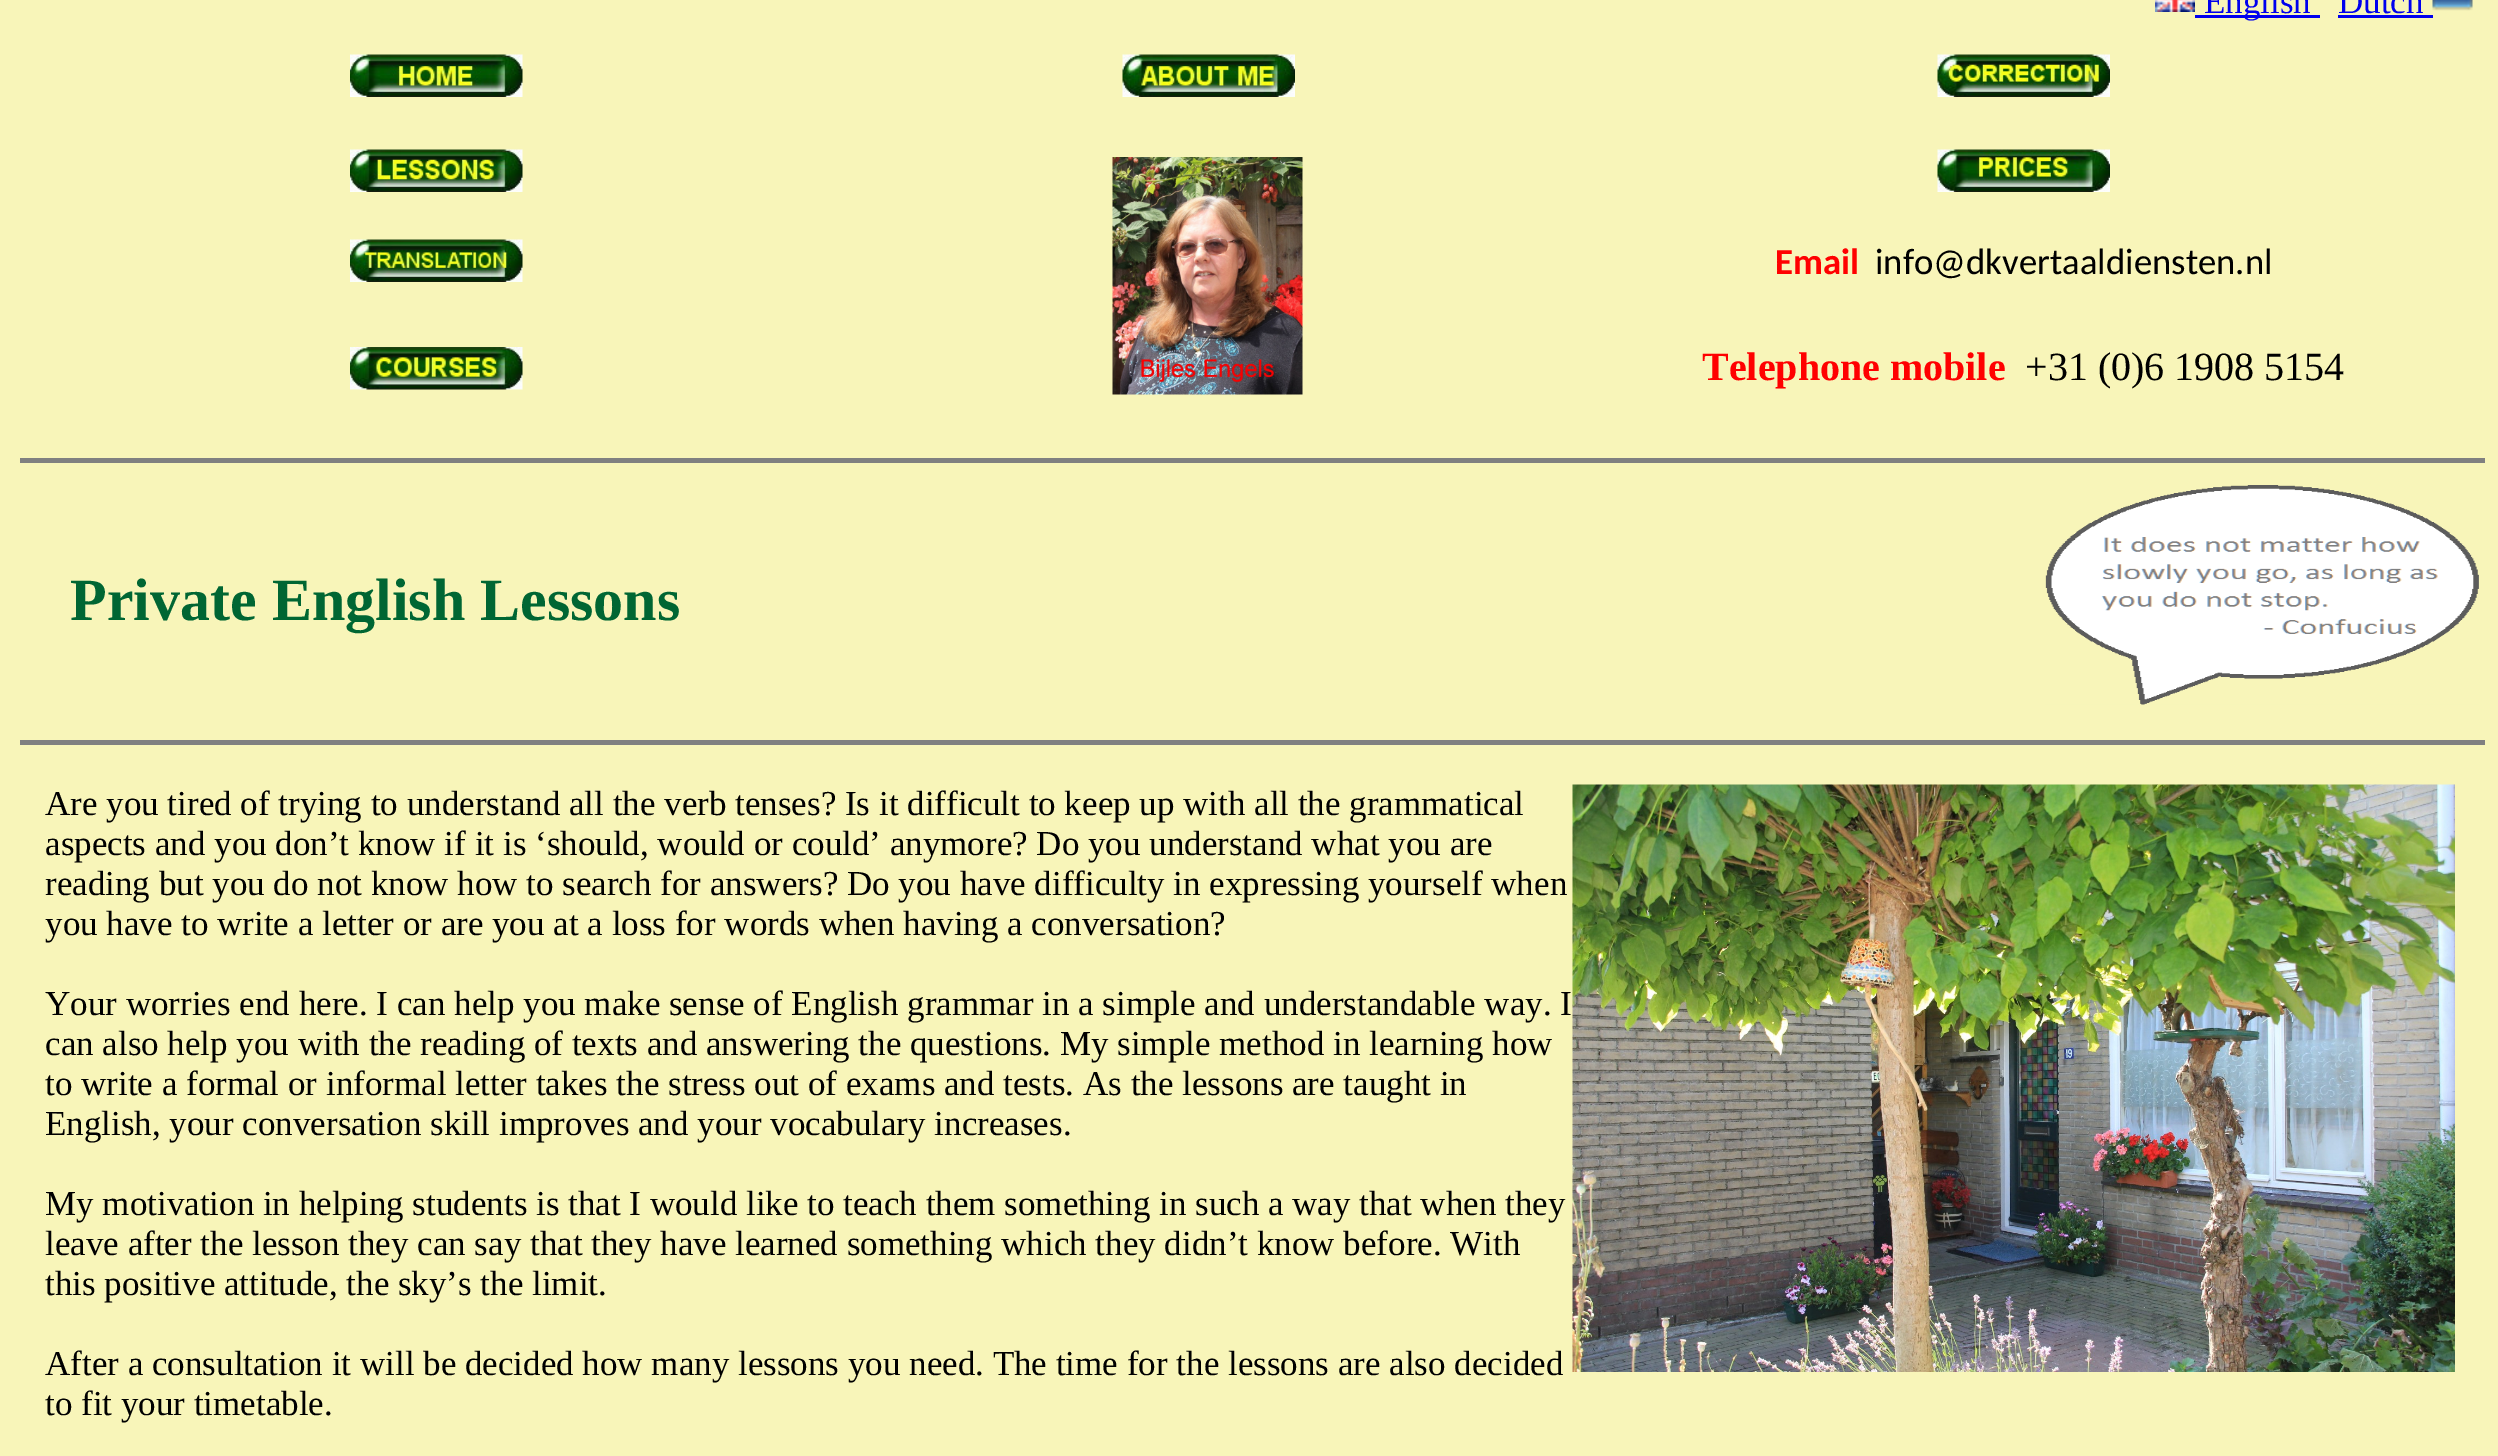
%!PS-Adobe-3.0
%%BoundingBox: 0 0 2498 1456
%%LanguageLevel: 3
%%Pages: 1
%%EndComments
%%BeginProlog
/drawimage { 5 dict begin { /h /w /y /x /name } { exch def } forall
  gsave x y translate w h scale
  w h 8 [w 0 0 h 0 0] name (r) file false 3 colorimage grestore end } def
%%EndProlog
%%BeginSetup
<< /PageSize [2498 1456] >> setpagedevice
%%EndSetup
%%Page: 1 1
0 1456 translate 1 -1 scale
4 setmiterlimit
0.973 0.961 0.725 setrgbcolor
0 0 2498 1456 rectfill
(images/1.raw) 2155 0 40 12 drawimage
0 0 0.933 setrgbcolor
2195 15 125 3 rectfill
2338 15 95 3 rectfill
(images/2.raw) 2432 0 41 11 drawimage
(images/3.raw) 350 54 173 43 drawimage
(images/4.raw) 1122 54 173 43 drawimage
(images/5.raw) 1937 54 173 43 drawimage
(images/6.raw) 350 149 173 43 drawimage
(images/7.raw) 1112 157 191 238 drawimage
(images/8.raw) 1937 149 173 43 drawimage
(images/9.raw) 350 239 173 43 drawimage
(images/10.raw) 350 347 173 43 drawimage
0.502 setgray
20 458 2465 5 rectfill
(images/11.raw) 2045 485 434 220 drawimage
20 740 2465 5 rectfill
(images/12.raw) 1572 784 883 588 drawimage
/LiberationSerif-Regular [35 0 0 -35 0 0] selectfont
0 0 0.933 setrgbcolor
2204 13 moveto (English) show
2338 13 moveto (Dutch) show
/Carlito-Bold [36.75 0 0 -36.75 0 0] selectfont
1 0 0 setrgbcolor
1775 274 moveto (Email) show
/Carlito-Regular [36.75 0 0 -36.75 0 0] selectfont
0 setgray
1875 274 moveto (info@dkvertaaldiensten.nl) show
/LiberationSerif-Bold [40 0 0 -40 0 0] selectfont
1 0 0 setrgbcolor
1702 380 moveto (Telephone mobile) show
/LiberationSerif-Regular [40 0 0 -40 0 0] selectfont
0 setgray
2025 380 moveto (+31 \(0\)6 1908 5154) show
/LiberationSerif-Bold [60 0 0 -60 0 0] selectfont
0 0.4 0.2 setrgbcolor
70 620 moveto (Private English Lessons) show
/LiberationSerif-Regular [35 0 0 -35 0 0] selectfont
0 setgray
45 815 moveto (Are you tired of trying to understand all the verb tenses? Is it difficult to keep up with all the grammatical) show
45 855 moveto (aspects and you don’t know if it is ‘should, would or could’ anymore? Do you understand what you are) show
45 895 moveto (reading but you do not know how to search for answers? Do you have difficulty in expressing yourself when) show
45 935 moveto (you have to write a letter or are you at a loss for words when having a conversation?) show
45 1015 moveto (Your worries end here. I can help you make sense of English grammar in a simple and understandable way. I) show
45 1055 moveto (can also help you with the reading of texts and answering the questions. My simple method in learning how) show
45 1095 moveto (to write a formal or informal letter takes the stress out of exams and tests. As the lessons are taught in) show
45 1135 moveto (English, your conversation skill improves and your vocabulary increases.) show
45 1215 moveto (My motivation in helping students is that I would like to teach them something in such a way that when they) show
45 1255 moveto (leave after the lesson they can say that they have learned something which they didn’t know before. With) show
45 1295 moveto (this positive attitude, the sky’s the limit.) show
45 1375 moveto (After a consultation it will be decided how many lessons you need. The time for the lessons are also decided) show
45 1415 moveto (to fit your timetable.) show
showpage
%%EOF
